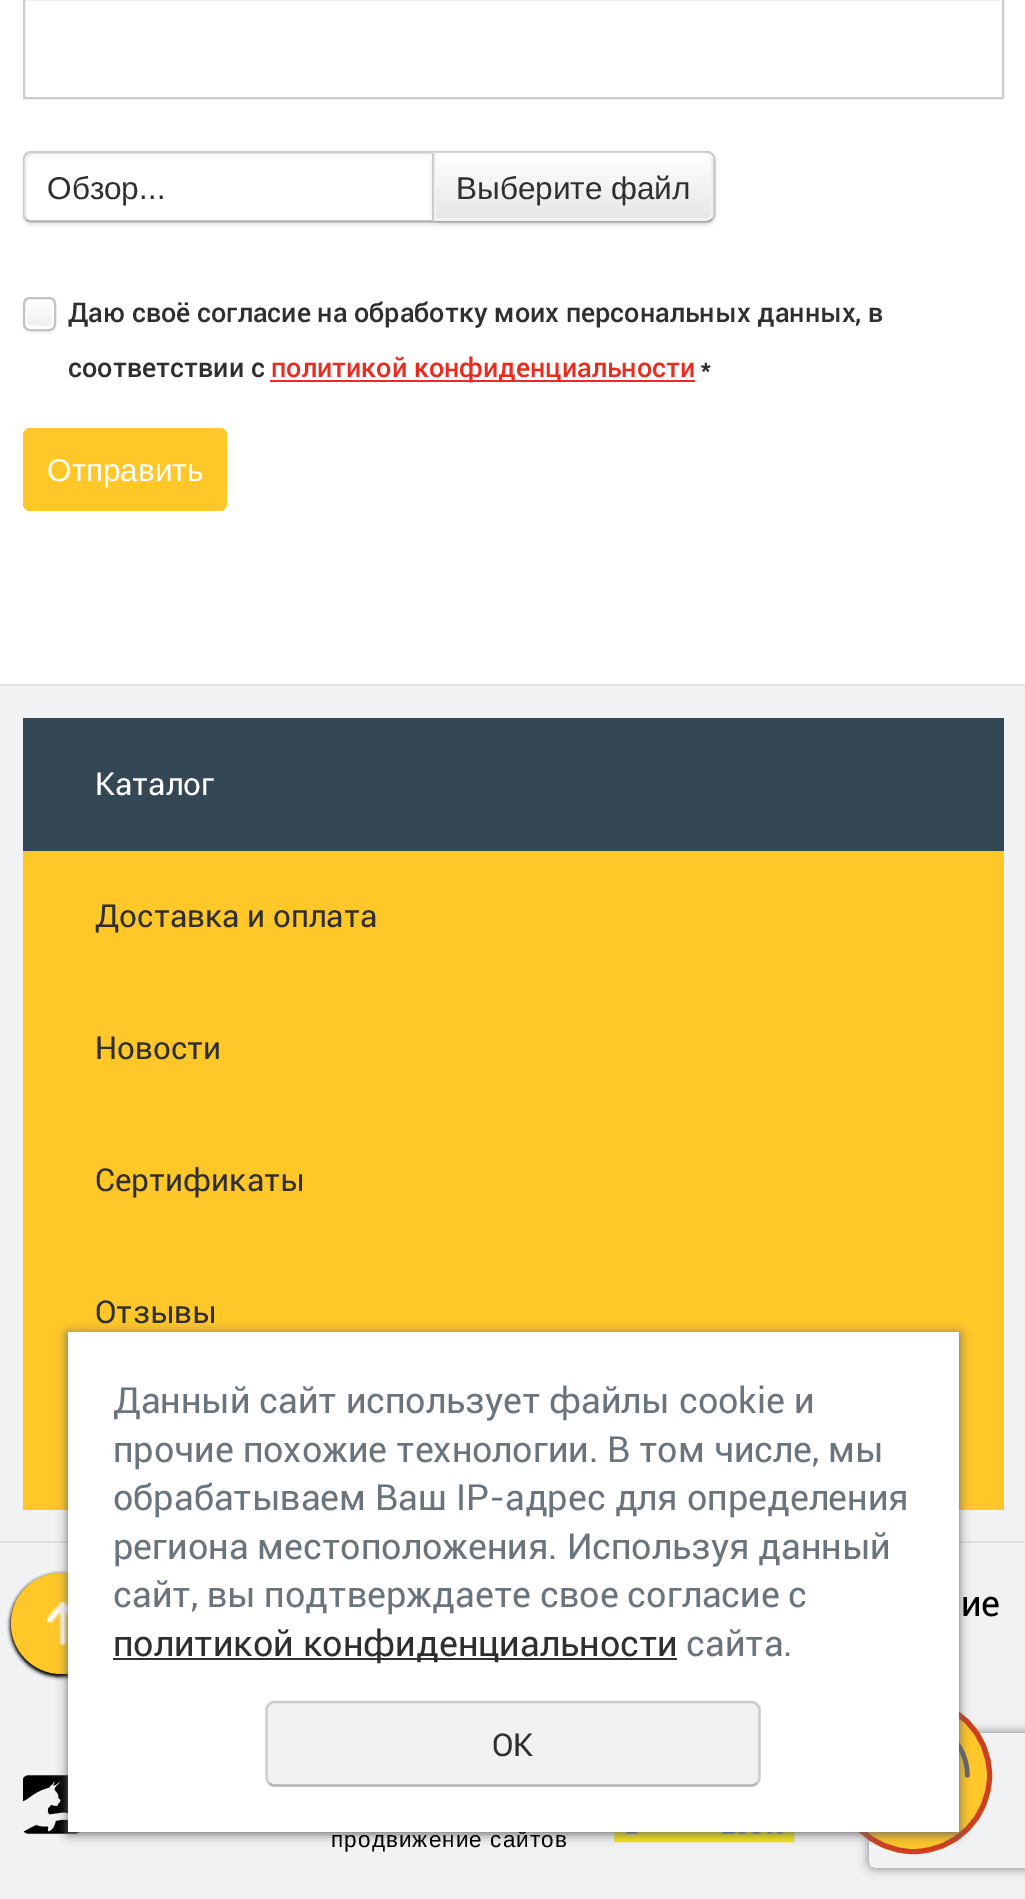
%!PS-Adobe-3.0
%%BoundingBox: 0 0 1025 1899
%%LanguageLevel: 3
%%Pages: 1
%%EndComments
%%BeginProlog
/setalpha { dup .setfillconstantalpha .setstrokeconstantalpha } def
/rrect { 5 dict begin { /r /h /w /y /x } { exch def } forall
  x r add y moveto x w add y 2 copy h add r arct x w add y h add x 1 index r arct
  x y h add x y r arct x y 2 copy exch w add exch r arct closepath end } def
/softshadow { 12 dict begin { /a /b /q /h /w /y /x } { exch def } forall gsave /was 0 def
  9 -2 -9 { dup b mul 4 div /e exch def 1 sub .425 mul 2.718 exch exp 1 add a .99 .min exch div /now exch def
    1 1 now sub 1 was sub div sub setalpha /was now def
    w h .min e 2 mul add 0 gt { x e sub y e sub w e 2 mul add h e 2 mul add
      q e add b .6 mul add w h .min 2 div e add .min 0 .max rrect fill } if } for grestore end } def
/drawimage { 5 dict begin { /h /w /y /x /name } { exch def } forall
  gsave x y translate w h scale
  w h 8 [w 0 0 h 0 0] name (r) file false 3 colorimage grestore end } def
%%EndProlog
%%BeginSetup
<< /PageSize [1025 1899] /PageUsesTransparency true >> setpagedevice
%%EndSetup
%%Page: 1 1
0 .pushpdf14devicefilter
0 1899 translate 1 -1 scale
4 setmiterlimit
1 setgray
0 0 1025 1899 rectfill
0.8 setgray
2 setlinewidth
24 -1 979 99 rectstroke
gsave
newpath 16 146 moveto 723 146 lineto 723 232 lineto 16 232 lineto closepath 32 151 moveto 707 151 lineto 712 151 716 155 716 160 curveto 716 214 lineto 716 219 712 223 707 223 curveto 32 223 lineto 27 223 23 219 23 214 curveto 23 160 lineto 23 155 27 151 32 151 curveto closepath eoclip newpath
0 setgray
23 153 693 72 9 2 0.1 softshadow
grestore
1 setgray
23 151 693 72 9 rrect fill
0.945 setgray
newpath 34 155 moveto 30 155 27 158 27 162 curveto 27 216 lineto 27 217 27 219 28 220 curveto 26 219 25 216 25 214 curveto 25 160 lineto 25 156 28 153 32 153 curveto 706 153 lineto 708 153 710 154 711 156 curveto 709 155 lineto closepath fill
gsave
23 151 693 72 9 rrect clip newpath
0.702 setgray
2.2 setlinewidth
newpath 712 219.5 moveto 709 221.5 lineto 31.5 221.5 lineto 29.5 221.5 27.5 221 26 219.5 curveto stroke
0.8 setgray
newpath 26 219.5 moveto 24.5 218 23.5 216 23.5 214 curveto 23.5 160 lineto 23.5 157.5 24.5 155.5 26 154 curveto 27.5 152.5 29.5 152 31.5 152 curveto 706.5 152 lineto 708.5 152 710.5 152.5 712 154 curveto 713.5 155.5 714.5 157.5 714.5 160 curveto 714.5 214 lineto 714.5 216 713.5 218 712 219.5 curveto stroke
grestore
0 setgray
432 155 281 68 9 2 0.1 softshadow
(images/1.raw) 432 152 281 66 drawimage
0.945 setgray
newpath 434 220 moveto 434 221 lineto 704 221 lineto 709 221 713 217 713 212 curveto 713 162 lineto 713 157 709 153 704 153 curveto 702 153 lineto 707 153 711 157 711 162 curveto 711 212 lineto 711 216 707 220 702 220 curveto closepath fill
newpath 434 153 moveto 436 153 lineto 436 218 lineto 706 218 lineto 708 218 710 217 712 216 curveto 711 219 708 221 704 221 curveto 434 221 lineto closepath fill
0.8 setgray
432 153 2 68 rectfill
0 setgray
23 299 33 34 7 1 0.05 softshadow
(images/2.raw) 23 299 33 27 drawimage
1 setgray
newpath 28 299.5 moveto 26 300.5 25 302 25 304 curveto 25 324 lineto 25 327 27 329 30 329 curveto 49 329 lineto 51 329 53 327.5 53.5 325.5 curveto 51.5 326.5 32 326 30 325.5 curveto 29 325 28 324.5 27.5 323.5 curveto 26.5 320.5 lineto 27 312.5 lineto 27 303 lineto closepath fill
newpath 25 325.5 moveto 26 327.5 27.5 329 30 329 curveto 49 329 lineto 52 329 54 327 54 324 curveto 54 304 lineto 54 302.5 53 301 52 300 curveto 52.5 303 lineto 52 312 lineto 52 320 lineto 52 321.5 51.5 323.5 50.5 325 curveto 49.5 326 48.5 326 47 326 curveto 35.5 326 lineto 32.5 326 28.5 326.5 25 325.5 curveto closepath fill
0.765 setgray
24 298 31 32 6 rrect stroke
0.918 0.169 0.122 setrgbcolor
270 380 425 2 rectfill
1 0.78 0.157 setrgbcolor
23 428 204 83 7 rrect fill
0.941 0.949 0.953 setrgbcolor
0 686 1025 855 rectfill
0.867 0.882 0.89 setrgbcolor
0 684 1025 2 rectfill
1 0.78 0.157 setrgbcolor
23 851 981 659 rectfill
0.2 0.278 0.333 setrgbcolor
23 718 981 133 rectfill
0.941 0.949 0.953 setrgbcolor
0 1543 1025 356 rectfill
0.867 0.882 0.89 setrgbcolor
0 1541 1025 2 rectfill
(images/3.raw) 23 1775 57 59 drawimage
(images/4.raw) 614 1832 181 11 drawimage
0 setgray
11 1575 102 101 50.5 2 1 softshadow
11 1575 102 101 50.5 2 1 softshadow
1 0.78 0.157 setrgbcolor
11 1573 102 101 50.5 rrect fill
(images/5.raw) 47 1601 21 44 drawimage
gsave
newpath 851 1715 moveto 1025 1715 lineto 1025 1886 lineto 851 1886 lineto closepath 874 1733 moveto 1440 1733 lineto 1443 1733 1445 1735 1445 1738 curveto 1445 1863 lineto 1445 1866 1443 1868 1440 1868 curveto 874 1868 lineto 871 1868 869 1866 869 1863 curveto 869 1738 lineto 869 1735 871 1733 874 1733 curveto closepath eoclip newpath
0.502 setgray
869 1733 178 135 5 5.5 1 softshadow
grestore
newpath 913.5 1775.5 78.5 0 360 arc closepath fill
(images/6.raw) 959 1742 11 36 drawimage
0.8 0.247 0.141 setrgbcolor
5 setlinewidth
newpath 913.5 1775.5 76 0 360 arc closepath stroke
0.4 setgray
68 1334 891 500 0 5.5 1 softshadow
/LiberationSans-Regular [31.5 0 0 -31.5 0 0] selectfont
0.184 setgray
47 199 moveto (Обзор...) show
456 199 moveto (Выберите файл) show
/Roboto-Medium [27 0 0 -27 0 0] selectfont
68 322 moveto (Даю своё согласие на обработку моих персональных данных, в) show
68 377 moveto (соответствии с) show
0.918 0.169 0.122 setrgbcolor
271 377 moveto (политикой конфиденциальности) show
0.184 setgray
700 377 moveto (*) show
/LiberationSans-Regular [31.5 0 0 -31.5 0 0] selectfont
1 setgray
47 481 moveto (Отправить) show
/Roboto-Regular [31.5 0 0 -31.5 0 0] selectfont
95 795 moveto (Каталог) show
0.184 setgray
95 927 moveto (Доставка и оплата) show
95 1059 moveto (Новости) show
95 1191 moveto (Сертификаты) show
95 1323 moveto (Отзывы) show
/Roboto-Regular [36 0 0 -36 0 0] selectfont
0 setgray
961 1616 moveto (ие) show
/LiberationSans-Regular [22.5 0 0 -22.5 0 0] selectfont
331 1847 moveto 1.1 0 (продвижение сайтов) ashow
1 setgray
68 1332 891 500 rectfill
/Roboto-Regular [36 0 0 -36 0 0] selectfont
0.416 0.455 0.486 setrgbcolor
113 1413 moveto (Данный сайт использует файлы cookie и) show
113 1462 moveto (прочие похожие технологии. В том числе, мы) show
113 1510 moveto (обрабатываем Ваш IP-адрес для определения) show
113 1559 moveto (региона местоположения. Используя данный) show
113 1607 moveto (сайт, вы подтверждаете свое согласие с) show
0.2 setgray
113 1658 564 2 rectfill
0.184 setgray
113 1656 moveto (политикой конфиденциальности) show
0.416 0.455 0.486 setrgbcolor
686 1656 moveto (сайта.) show
0.945 setgray
266 1701 495 86 9 rrect fill
0.702 setgray
2.2 setlinewidth
newpath 757 1783 moveto 755.5 1784.5 753.5 1785.5 751.5 1785.5 curveto 274.5 1785.5 lineto 272.5 1785.5 270.5 1784.5 269 1783 curveto stroke
0.8 setgray
newpath 269 1783 moveto 267.5 1781.5 266.5 1779.5 266.5 1777.5 curveto 266.5 1710 lineto 266.5 1708 267.5 1706 269 1704.5 curveto 270.5 1703 272.5 1702 274.5 1702 curveto 751.5 1702 lineto 753.5 1702 755.5 1703 757 1704.5 curveto 758.5 1706 759.5 1708 759.5 1710 curveto 759.5 1777.5 lineto 759.5 1779.5 758.5 1781.5 757 1783 curveto stroke
/Roboto-Regular [31.5 0 0 -31.5 0 0] selectfont
0.184 setgray
492 1756 moveto (OK) show
.poppdf14devicefilter showpage
%%EOF
